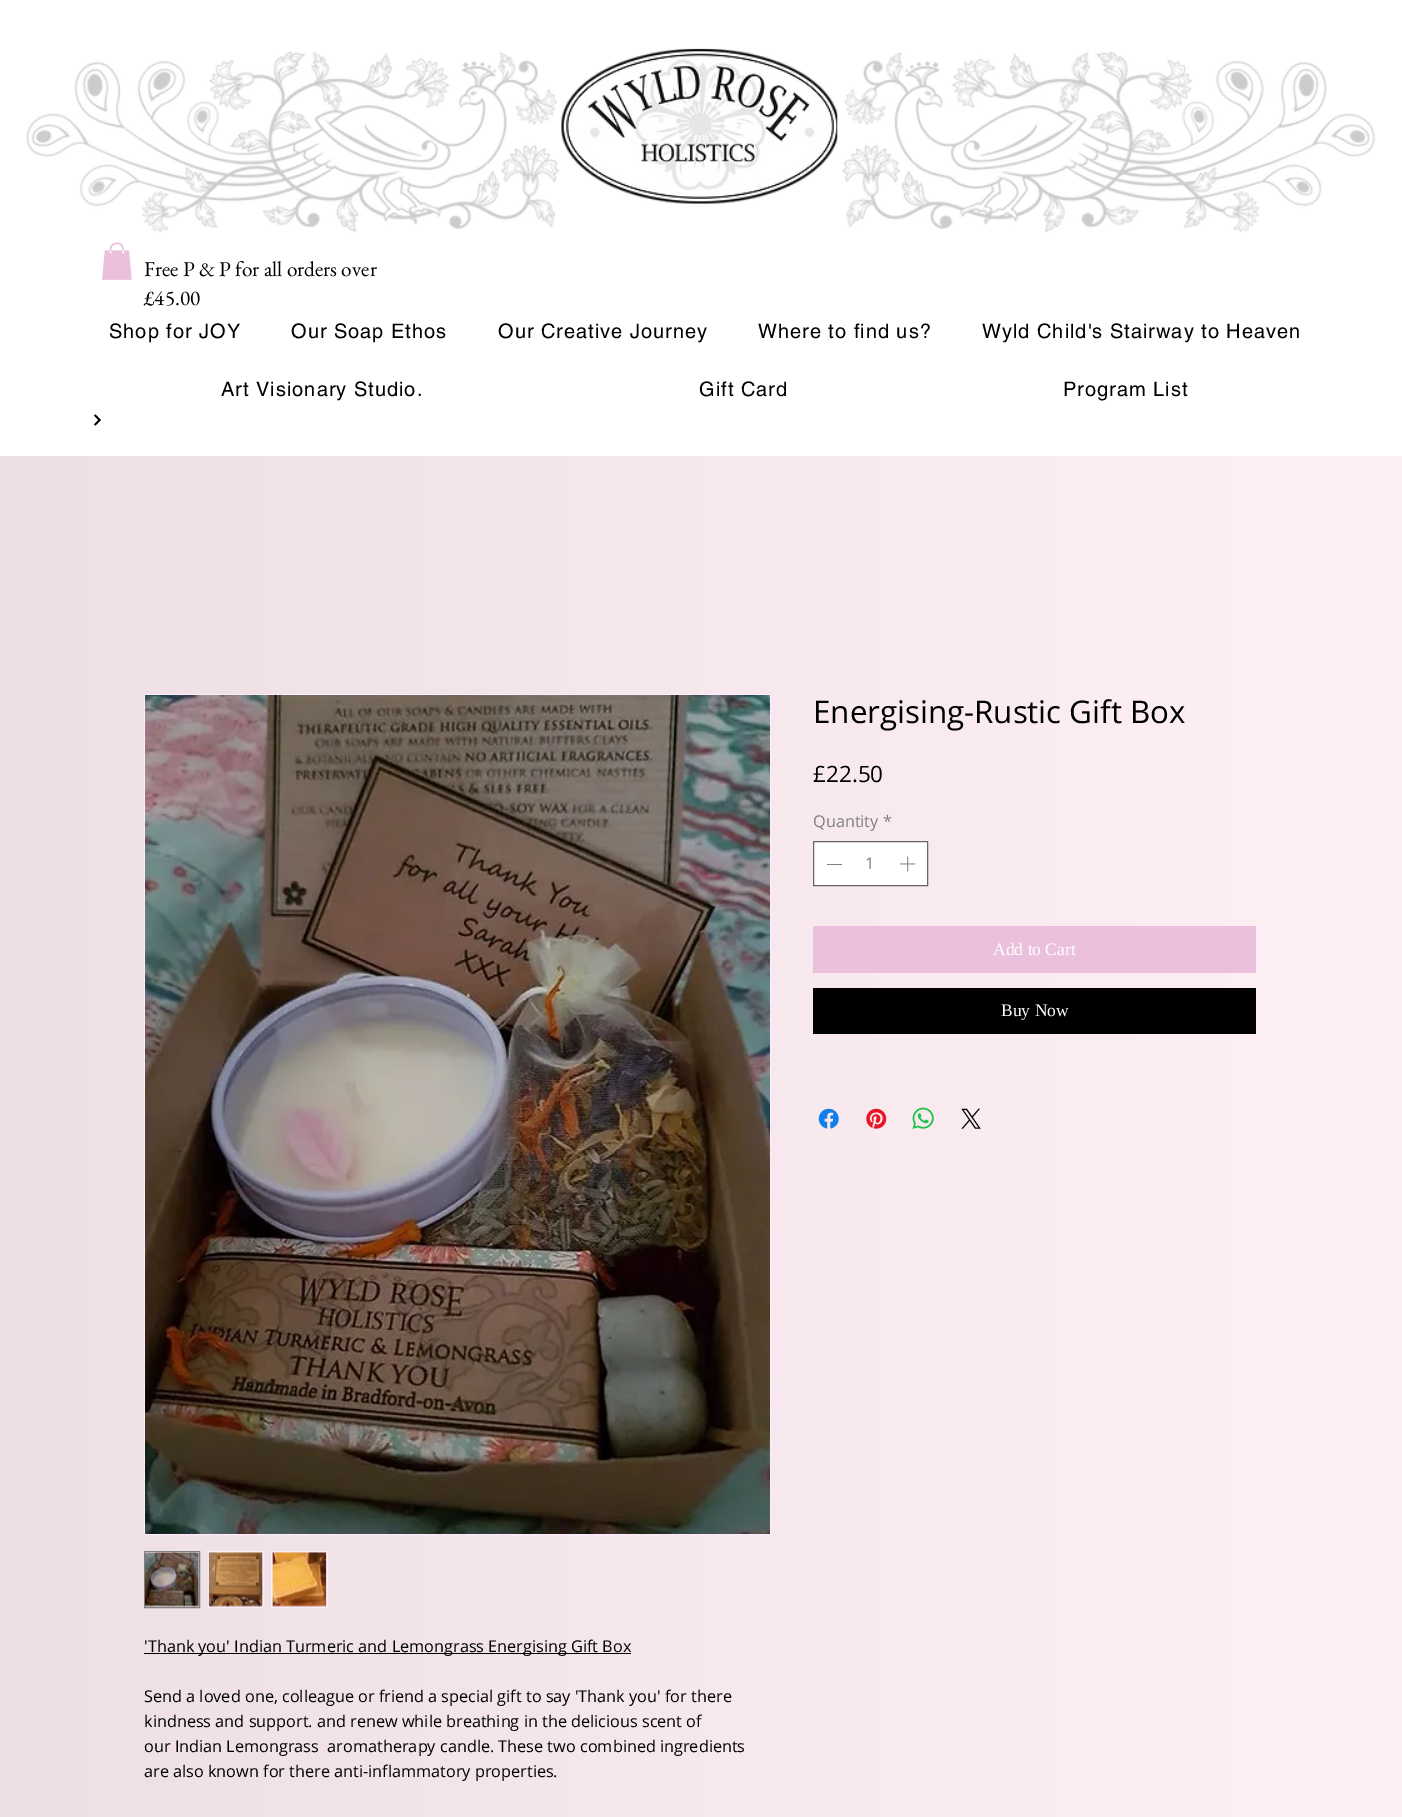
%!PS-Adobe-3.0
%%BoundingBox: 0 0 1402 1817
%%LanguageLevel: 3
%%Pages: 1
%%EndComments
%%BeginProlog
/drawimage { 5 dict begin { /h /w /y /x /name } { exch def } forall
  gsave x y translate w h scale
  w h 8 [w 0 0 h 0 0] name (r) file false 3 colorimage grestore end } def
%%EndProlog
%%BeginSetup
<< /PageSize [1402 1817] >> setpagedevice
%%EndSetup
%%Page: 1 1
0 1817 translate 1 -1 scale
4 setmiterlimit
1 setgray
0 0 1402 1817 rectfill
(images/1.raw) 26 51 534 182 drawimage
(images/2.raw) 561 48 277 156 drawimage
(images/3.raw) 842 51 534 182 drawimage
(images/4.raw) 102 242 30 38 drawimage
(images/5.raw) 94 414 7 12 drawimage
gsave newpath 0 456 moveto 1402 456 lineto 1402 1817 lineto 0 1817 lineto closepath clip newpath
<< /ShadingType 2 /ColorSpace /DeviceRGB /Coords [0 1648 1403 1648] /Extend [true true] /Function << /FunctionType 2 /Domain [0 1] /C0 [0.929 0.875 0.894] /C1 [1 0.941 0.961] /N 1 >> >> shfill grestore
newpath 813.5 841.5 moveto 927.5 841.5 lineto 927.5 885.5 lineto 813.5 885.5 lineto closepath gsave fill grestore
0.4 setgray
stroke
0.502 setgray
827 864 15 1 rectfill
(images/6.raw) 900 856 16 16 drawimage
0.922 0.753 0.863 setrgbcolor
813 926 443 47 rectfill
0 setgray
813 988 443 46 rectfill
(images/7.raw) 818 1108 21 21 drawimage
(images/8.raw) 866 1108 21 21 drawimage
(images/9.raw) 912 1107 22 22 drawimage
(images/10.raw) 961 1108 20 21 drawimage
1 0.922 0.996 setrgbcolor
144.5 694.5 626 840 rectstroke
(images/11.raw) 145 695 625 839 drawimage
0.502 setgray
144.5 1551.5 55 56 rectstroke
(images/12.raw) 145 1552 54 55 drawimage
1 0.922 0.996 setrgbcolor
208.5 1551.5 55 56 rectstroke
(images/13.raw) 208 1552 55 55 drawimage
271.5 1551.5 56 56 rectstroke
(images/14.raw) 272 1552 55 55 drawimage
0 setgray
144 1653 487 1 rectfill
/EBGaramond-Regular [21.25 0 0 -21.25 0 0] selectfont
144 276 moveto (Free P & P for all orders over) show
144 305 moveto (£45.00) show
/helvetica-Regular [20 0 0 -20 0 0] selectfont
109 338 moveto 1 0 (Shop for JOY) ashow
291 338 moveto 1 0 (Our Soap Ethos) ashow
498 338 moveto 1 0 (Our Creative Journey) ashow
758 338 moveto 1 0 (Where to find us?) ashow
982 338 moveto 1 0 (Wyld Child's Stairway to Heaven) ashow
221 396 moveto 1 0 (Art Visionary Studio.) ashow
699 396 moveto 1 0 (Gift Card) ashow
1063 396 moveto 1 0 (Program List) ashow
/OpenSans-Regular [31.25 0 0 -31.25 0 0] selectfont
813 723 moveto (Energising-Rustic Gift Box) show
/OpenSans-Regular [22.5 0 0 -22.5 0 0] selectfont
813 782 moveto (£22.50) show
/OpenSans-Regular [16.25 0 0 -16.25 0 0] selectfont
0.502 setgray
813 827 moveto (Quantity) show
883 827 moveto (*) show
865 869 moveto (1) show
/LiberationSerif-Regular [17.5 0 0 -17.5 0 0] selectfont
1 setgray
993 955 moveto (Add to Cart) show
1001 1016 moveto (Buy Now) show
/OpenSans-Regular [16.25 0 0 -16.25 0 0] selectfont
0 setgray
144 1652 moveto ('Thank you' Indian Turmeric and Lemongrass Energising Gift Box) show
144 1702 moveto (Send a loved one, colleague or friend a special gift to say 'Thank you' for there) show
144 1727 moveto (kindness and support. and renew while breathing in the delicious scent of) show
144 1752 moveto (our Indian Lemongrass  aromatherapy candle. These two combined ingredients) show
144 1777 moveto (are also known for there anti-inflammatory properties.) show
showpage
%%EOF
